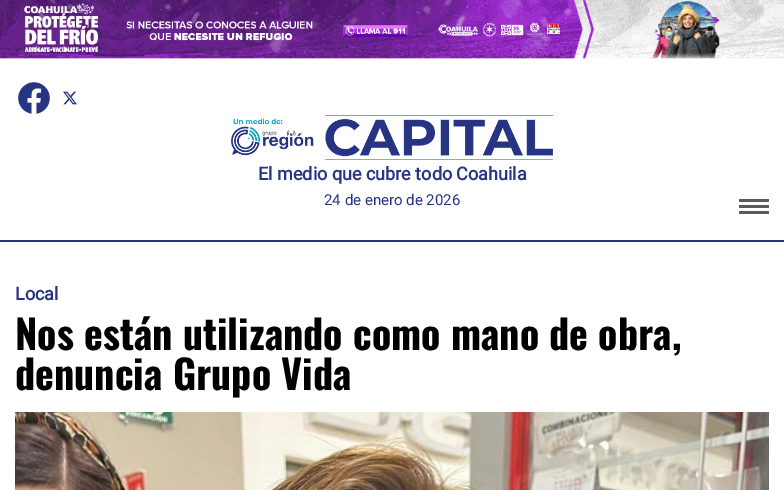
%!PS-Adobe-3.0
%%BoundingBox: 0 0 784 490
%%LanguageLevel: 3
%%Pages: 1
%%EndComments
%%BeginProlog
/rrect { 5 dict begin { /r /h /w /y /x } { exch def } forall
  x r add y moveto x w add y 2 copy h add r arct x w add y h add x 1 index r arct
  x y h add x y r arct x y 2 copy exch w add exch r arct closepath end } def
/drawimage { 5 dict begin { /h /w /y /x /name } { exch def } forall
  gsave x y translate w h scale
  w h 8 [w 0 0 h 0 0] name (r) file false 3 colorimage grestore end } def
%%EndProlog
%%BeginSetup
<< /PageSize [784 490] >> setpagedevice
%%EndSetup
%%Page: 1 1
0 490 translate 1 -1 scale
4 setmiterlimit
1 setgray
0 0 784 490 rectfill
(images/1.raw) 0 0 784 59 drawimage
(images/2.raw) 18 82 32 32 drawimage
(images/3.raw) 63 91 14 14 drawimage
(images/4.raw) 231 115 322 45 drawimage
0.153 0.204 0.518 setrgbcolor
0 240 784 2 rectfill
0.353 setgray
739 199 30 3 1 rrect fill
739 205 30 3 1 rrect fill
739 211 30 3 1 rrect fill
(images/5.raw) 15 412 754 78 drawimage
/Roboto-Bold [18 0 0 -18 0 0] selectfont
0.153 0.204 0.518 setrgbcolor
258 180 moveto (El medio que cubre todo Coahuila) show
/Roboto-Regular [15 0 0 -15 0 0] selectfont
324 205 moveto (24 de enero de 2026) show
/Roboto-Bold [18 0 0 -18 0 0] selectfont
15 300 moveto (Local) show
/Oswald-Bold [40 0 0 -40 0 0] selectfont
0 setgray
15 350 moveto (Nos están utilizando como mano de obra,) show
15 390 moveto (denuncia Grupo Vida) show
showpage
%%EOF
